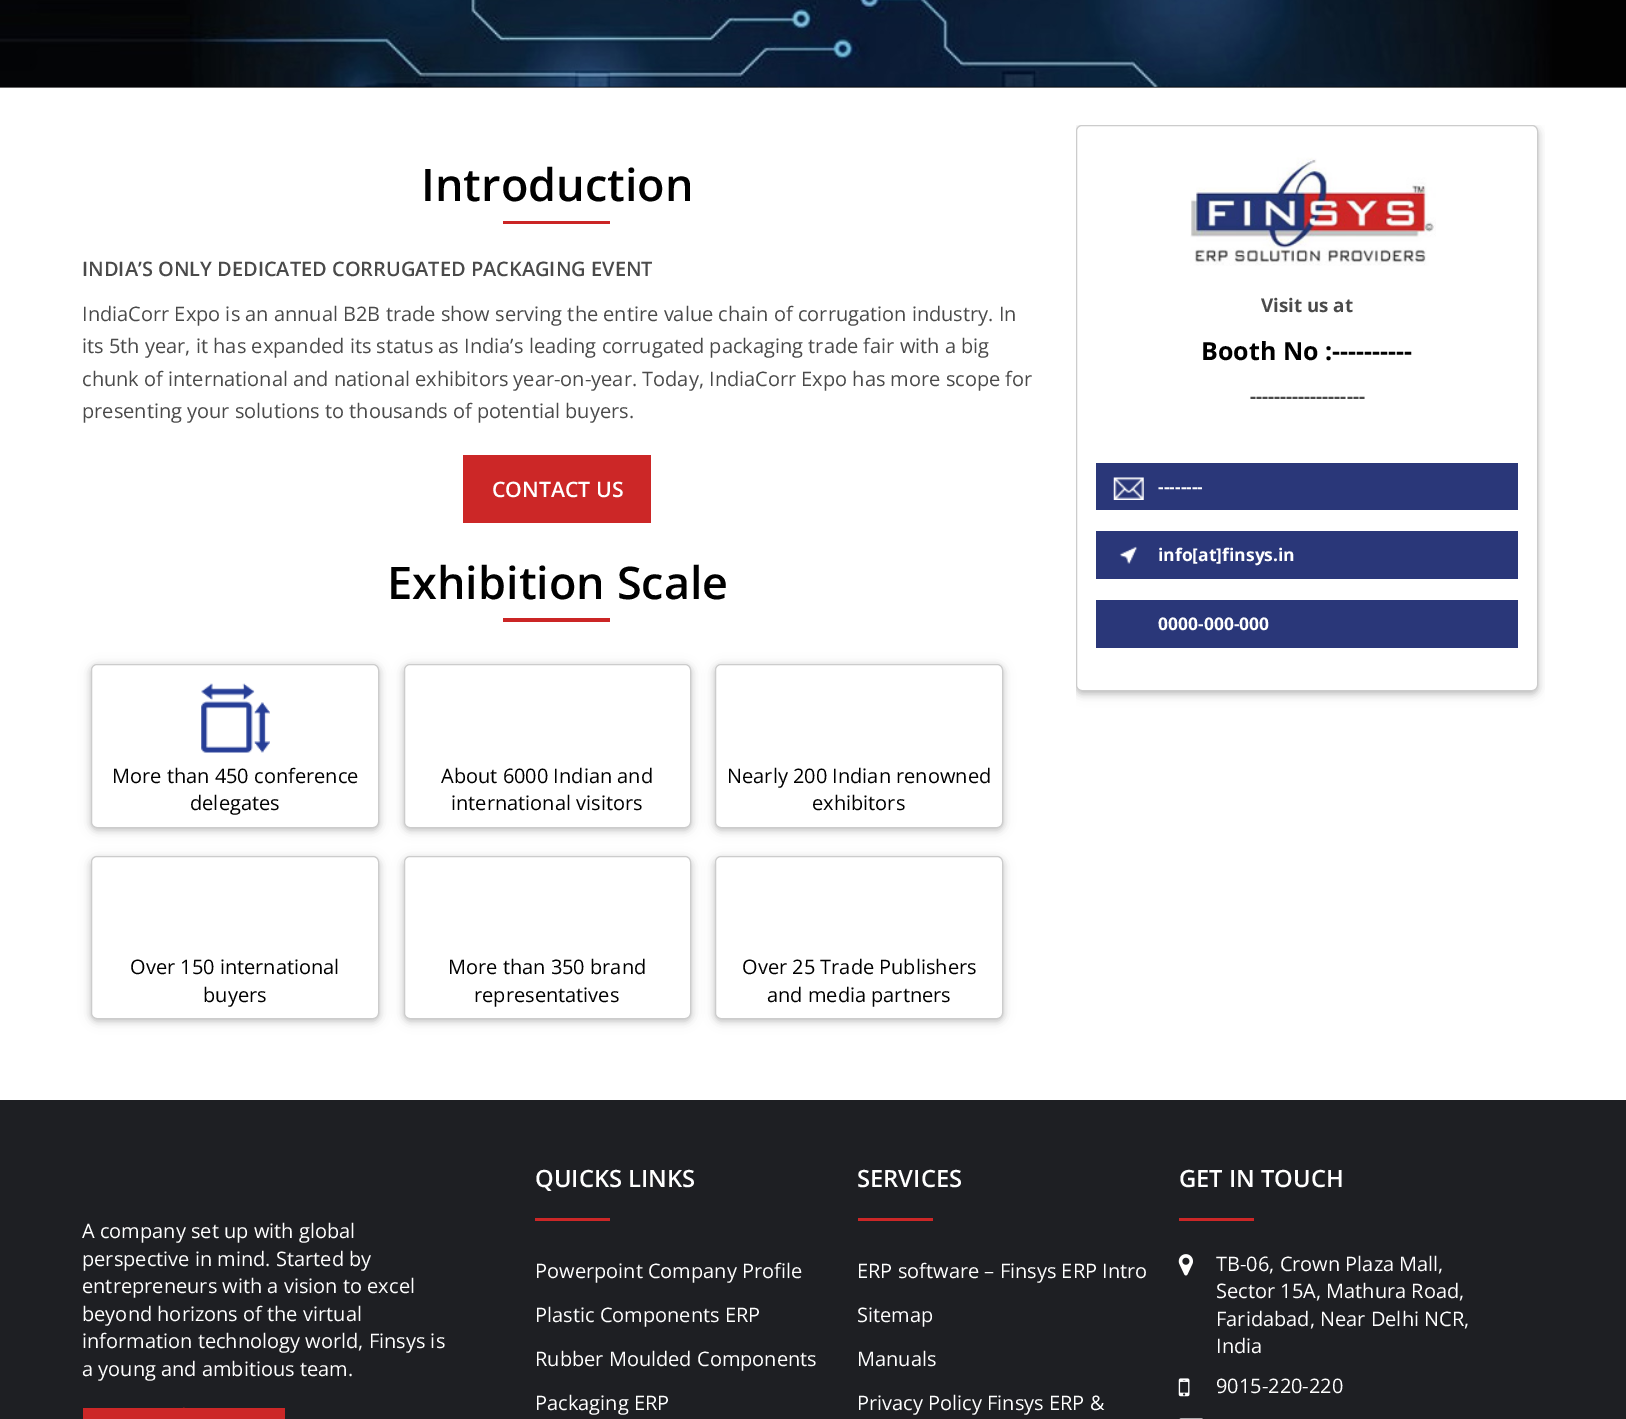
%!PS-Adobe-3.0
%%BoundingBox: 0 0 1626 1419
%%LanguageLevel: 3
%%Pages: 1
%%EndComments
%%BeginProlog
/setalpha { dup .setfillconstantalpha .setstrokeconstantalpha } def
/rrect { 5 dict begin { /r /h /w /y /x } { exch def } forall
  x r add y moveto x w add y 2 copy h add r arct x w add y h add x 1 index r arct
  x y h add x y r arct x y 2 copy exch w add exch r arct closepath end } def
/softshadow { 12 dict begin { /a /b /q /h /w /y /x } { exch def } forall gsave /was 0 def
  9 -2 -9 { dup b mul 4 div /e exch def 1 sub .425 mul 2.718 exch exp 1 add a .99 .min exch div /now exch def
    1 1 now sub 1 was sub div sub setalpha /was now def
    w h .min e 2 mul add 0 gt { x e sub y e sub w e 2 mul add h e 2 mul add
      q e add b .6 mul add w h .min 2 div e add .min 0 .max rrect fill } if } for grestore end } def
/drawimage { 5 dict begin { /h /w /y /x /name } { exch def } forall
  gsave x y translate w h scale
  w h 8 [w 0 0 h 0 0] name (r) file false 3 colorimage grestore end } def
%%EndProlog
%%BeginSetup
<< /PageSize [1626 1419] /PageUsesTransparency true >> setpagedevice
%%EndSetup
%%Page: 1 1
0 .pushpdf14devicefilter
0 1419 translate 1 -1 scale
4 setmiterlimit
1 setgray
0 0 1626 1419 rectfill
0.8 setgray
0 87 1626 1 rectfill
(images/1.raw) 0 0 1626 88 drawimage
0.796 0.145 0.145 setrgbcolor
503 221 107 3 rectfill
0.8 0.153 0.153 setrgbcolor
463 455 188 68 rectfill
0.796 0.145 0.145 setrgbcolor
503 618 107 4 rectfill
0 setgray
91 666 288 164 6 6 0.12 softshadow
91 666 288 164 6 3 0.16 softshadow
1 setgray
91.5 664.5 287 163 5.5 rrect gsave fill grestore
0.8 setgray
stroke
(images/2.raw) 201 683 69 70 drawimage
0 setgray
404 666 287 164 6 6 0.12 softshadow
404 666 287 164 6 3 0.16 softshadow
1 setgray
404.5 664.5 286 163 5.5 rrect gsave fill grestore
0.8 setgray
stroke
0 setgray
715 666 288 164 6 6 0.12 softshadow
715 666 288 164 6 3 0.16 softshadow
1 setgray
715.5 664.5 287 163 5.5 rrect gsave fill grestore
0.8 setgray
stroke
0 setgray
91 859 288 162 6 6 0.12 softshadow
91 859 288 162 6 3 0.16 softshadow
1 setgray
91.5 856.5 287 162 5.5 rrect gsave fill grestore
0.8 setgray
stroke
0 setgray
404 859 287 162 6 6 0.12 softshadow
404 859 287 162 6 3 0.16 softshadow
1 setgray
404.5 856.5 286 162 5.5 rrect gsave fill grestore
0.8 setgray
stroke
0 setgray
715 859 288 162 6 6 0.12 softshadow
715 859 288 162 6 3 0.16 softshadow
1 setgray
715.5 856.5 287 162 5.5 rrect gsave fill grestore
0.8 setgray
stroke
gsave
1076 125 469 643 rectclip
0 setgray
1076 128 462 566 6 6 0.12 softshadow
1076 128 462 566 6 3 0.16 softshadow
grestore
1 setgray
1076.5 125.5 461 565 5.5 rrect gsave fill grestore
0.8 setgray
stroke
(images/3.raw) 1190 157 246 109 drawimage
0.165 0.216 0.475 setrgbcolor
1096 463 422 47 rectfill
(images/4.raw) 1113 477 31 23 drawimage
1096 531 422 48 rectfill
(images/5.raw) 1119 546 19 18 drawimage
1096 600 422 48 rectfill
0.118 0.122 0.137 setrgbcolor
0 1100 1626 319 rectfill
0.8 0.153 0.153 setrgbcolor
83 1408 202 11 rectfill
newpath 196 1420 moveto 171 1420 lineto 184 1407.5 lineto closepath fill
535 1218 75 3 rectfill
858 1218 75 3 rectfill
1179 1218 75 3 rectfill
(images/6.raw) 1178 1254 15 22 drawimage
(images/7.raw) 1178 1378 12 19 drawimage
(images/8.raw) 1179 1418 24 1 drawimage
/OpenSans-SemiBold [45 0 0 -45 0 0] selectfont
0 setgray
421 201 moveto (Introduction) show
/OpenSans-SemiBold [20 0 0 -20 0 0] selectfont
0.29 setgray
82 276 moveto (INDIA’S ONLY DEDICATED CORRUGATED PACKAGING EVENT) show
/OpenSans-Regular [20 0 0 -20 0 0] selectfont
82 321 moveto (IndiaCorr Expo is an annual B2B trade show serving the entire value chain of corrugation industry. In) show
82 353 moveto (its 5th year, it has expanded its status as India’s leading corrugated packaging trade fair with a big) show
82 386 moveto (chunk of international and national exhibitors year-on-year. Today, IndiaCorr Expo has more scope for) show
82 418 moveto (presenting your solutions to thousands of potential buyers.) show
/OpenSans-SemiBold [21.25 0 0 -21.25 0 0] selectfont
1 setgray
492 497 moveto (CONTACT US) show
/OpenSans-SemiBold [45 0 0 -45 0 0] selectfont
0 setgray
387 599 moveto (Exhibition Scale) show
/OpenSans-Regular [20 0 0 -20 0 0] selectfont
112 783 moveto (More than 450 conference) show
190 810 moveto (delegates) show
441 783 moveto (About 6000 Indian and) show
451 810 moveto (international visitors) show
727 783 moveto (Nearly 200 Indian renowned) show
812 810 moveto (exhibitors) show
130 974 moveto (Over 150 international) show
203 1002 moveto (buyers) show
448 974 moveto (More than 350 brand) show
474 1002 moveto (representatives) show
742 974 moveto (Over 25 Trade Publishers) show
767 1002 moveto (and media partners) show
/OpenSans-Bold [18.75 0 0 -18.75 0 0] selectfont
0.29 setgray
1261 312 moveto (Visit us at) show
/OpenSans-Bold [25 0 0 -25 0 0] selectfont
0 setgray
1201 360 moveto (Booth No :----------) show
/OpenSans-Bold [18.75 0 0 -18.75 0 0] selectfont
0.29 setgray
1250 403 moveto (-------------------) show
/OpenSans-Bold [17.5 0 0 -17.5 0 0] selectfont
1 setgray
1158 493 moveto (--------) show
1158 561 moveto (info[at]finsys.in) show
1158 630 moveto (0000-000-000) show
/OpenSans-Regular [20 0 0 -20 0 0] selectfont
82 1238 moveto (A company set up with global) show
82 1266 moveto (perspective in mind. Started by) show
82 1293 moveto (entrepreneurs with a vision to excel) show
82 1321 moveto (beyond horizons of the virtual) show
82 1348 moveto (information technology world, Finsys is) show
82 1376 moveto (a young and ambitious team.) show
/OpenSans-SemiBold [23.75 0 0 -23.75 0 0] selectfont
535 1187 moveto (QUICKS LINKS) show
/OpenSans-Regular [20 0 0 -20 0 0] selectfont
535 1278 moveto (Powerpoint Company Profile) show
535 1322 moveto (Plastic Components ERP) show
535 1366 moveto (Rubber Moulded Components) show
535 1410 moveto (Packaging ERP) show
/OpenSans-SemiBold [23.75 0 0 -23.75 0 0] selectfont
857 1187 moveto (SERVICES) show
/OpenSans-Regular [20 0 0 -20 0 0] selectfont
857 1278 moveto (ERP software – Finsys ERP Intro) show
857 1322 moveto (Sitemap) show
857 1366 moveto (Manuals) show
857 1410 moveto (Privacy Policy Finsys ERP &) show
/OpenSans-SemiBold [23.75 0 0 -23.75 0 0] selectfont
1179 1187 moveto (GET IN TOUCH) show
/OpenSans-Regular [20 0 0 -20 0 0] selectfont
1216 1271 moveto (TB-06, Crown Plaza Mall,) show
1216 1298 moveto (Sector 15A, Mathura Road,) show
1216 1326 moveto (Faridabad, Near Delhi NCR,) show
1216 1353 moveto (India) show
1216 1393 moveto (9015-220-220) show
.poppdf14devicefilter showpage
%%EOF
